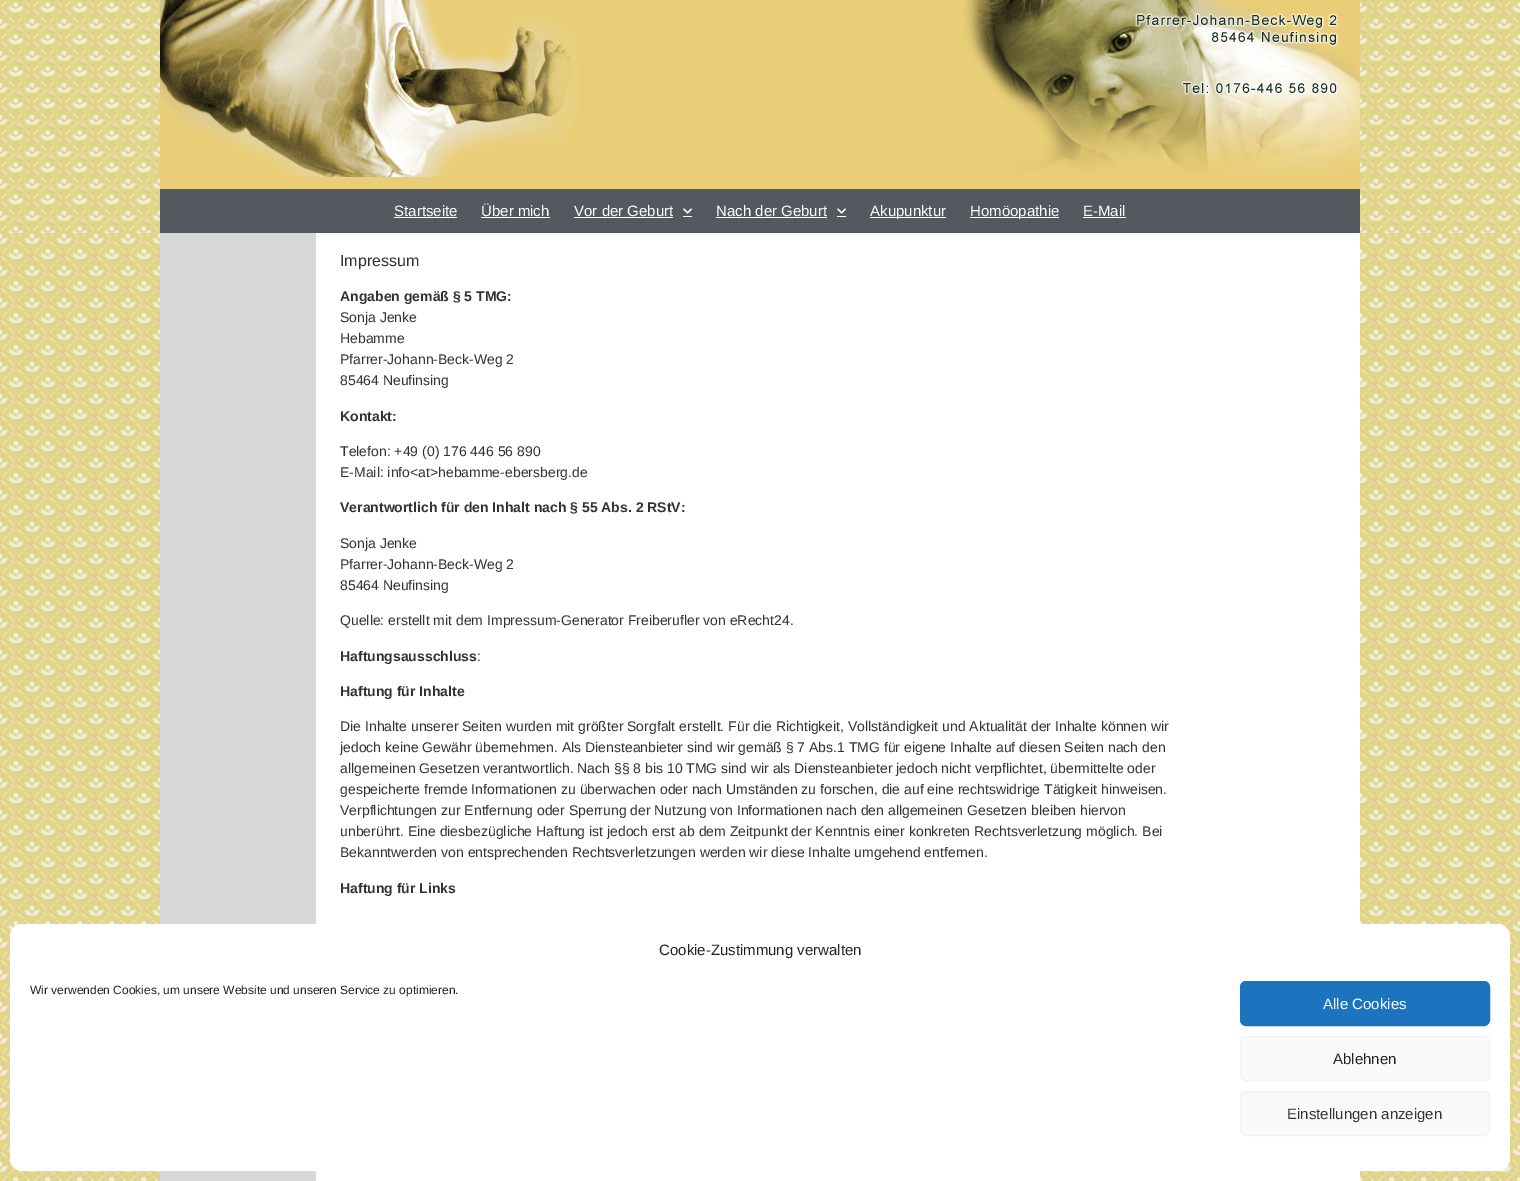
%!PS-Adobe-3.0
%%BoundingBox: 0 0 1520 1181
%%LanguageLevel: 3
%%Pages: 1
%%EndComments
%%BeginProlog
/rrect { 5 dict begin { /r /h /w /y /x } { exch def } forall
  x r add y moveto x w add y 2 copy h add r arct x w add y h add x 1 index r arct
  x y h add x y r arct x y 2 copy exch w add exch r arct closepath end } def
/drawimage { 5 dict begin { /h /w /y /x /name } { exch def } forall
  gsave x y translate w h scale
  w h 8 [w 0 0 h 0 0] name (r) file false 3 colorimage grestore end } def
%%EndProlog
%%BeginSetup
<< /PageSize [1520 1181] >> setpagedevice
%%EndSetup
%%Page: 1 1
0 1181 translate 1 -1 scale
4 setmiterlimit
1 setgray
0 0 1520 1181 rectfill
(images/1.raw) 0 0 1520 233 drawimage
0.918 0.808 0.467 setrgbcolor
160 177 1200 12 rectfill
(images/2.raw) 160 0 1200 177 drawimage
0.329 0.349 0.373 setrgbcolor
160 189 1200 44 rectfill
1 setgray
394 217 63 1 rectfill
481 217 69 1 rectfill
574 217 99 1 rectfill
(images/3.raw) 683 208 9 6 drawimage
683 216 9 1 rectfill
716 217 111 1 rectfill
(images/3.raw) 837 208 9 6 drawimage
837 216 9 1 rectfill
870 217 76 1 rectfill
970 217 89 1 rectfill
1083 217 43 1 rectfill
(images/4.raw) 0 233 1520 948 drawimage
0.847 setgray
160 233 156 948 rectfill
1 setgray
316 233 1044 948 rectfill
10 924 1500 247 12 rrect fill
0.118 0.451 0.745 setrgbcolor
1240.5 981.5 249 44 5.5 rrect gsave fill grestore
stroke
0.976 setgray
1240.5 1036.5 249 44 5.5 rrect gsave fill grestore
0.949 setgray
stroke
0.976 setgray
1240.5 1091.5 249 44 5.5 rrect gsave fill grestore
0.949 setgray
stroke
/LiberationSans-Regular [15 0 0 -15 0 0] selectfont
1 setgray
394 216 moveto (Startseite) show
481 216 moveto (Über mich) show
574 216 moveto (Vor der Geburt) show
716 216 moveto (Nach der Geburt) show
870 216 moveto (Akupunktur) show
970 216 moveto (Homöopathie) show
1083 216 moveto (E-Mail) show
/LiberationSans-Regular [16 0 0 -16 0 0] selectfont
0.2 setgray
340 266 moveto (Impressum) show
/LiberationSans-Bold [14 0 0 -14 0 0] selectfont
340 301 moveto (Angaben gemäß § 5 TMG:) show
/LiberationSans-Regular [14 0 0 -14 0 0] selectfont
340 322 moveto (Sonja Jenke) show
340 343 moveto (Hebamme) show
340 364 moveto (Pfarrer-Johann-Beck-Weg 2) show
340 385 moveto (85464 Neufinsing) show
/LiberationSans-Bold [14 0 0 -14 0 0] selectfont
340 421 moveto (Kontakt:) show
/LiberationSans-Regular [14 0 0 -14 0 0] selectfont
340 456 moveto (Telefon: +49 \(0\) 176 446 56 890) show
340 477 moveto (E-Mail: info<at>hebamme-ebersberg.de) show
/LiberationSans-Bold [14 0 0 -14 0 0] selectfont
340 512 moveto (Verantwortlich für den Inhalt nach § 55 Abs. 2 RStV:) show
/LiberationSans-Regular [14 0 0 -14 0 0] selectfont
340 548 moveto (Sonja Jenke) show
340 569 moveto (Pfarrer-Johann-Beck-Weg 2) show
340 590 moveto (85464 Neufinsing) show
340 625 moveto (Quelle: erstellt mit dem Impressum-Generator Freiberufler von eRecht24.) show
/LiberationSans-Bold [14 0 0 -14 0 0] selectfont
340 661 moveto (Haftungsausschluss) show
/LiberationSans-Regular [14 0 0 -14 0 0] selectfont
477 661 moveto (:) show
/LiberationSans-Bold [14 0 0 -14 0 0] selectfont
340 696 moveto (Haftung für Inhalte) show
/LiberationSans-Regular [14 0 0 -14 0 0] selectfont
340 731 moveto (Die Inhalte unserer Seiten wurden mit größter Sorgfalt erstellt. Für die Richtigkeit, Vollständigkeit und Aktualität der Inhalte können wir) show
340 752 moveto (jedoch keine Gewähr übernehmen. Als Diensteanbieter sind wir gemäß § 7 Abs.1 TMG für eigene Inhalte auf diesen Seiten nach den) show
340 773 moveto (allgemeinen Gesetzen verantwortlich. Nach §§ 8 bis 10 TMG sind wir als Diensteanbieter jedoch nicht verpflichtet, übermittelte oder) show
340 794 moveto (gespeicherte fremde Informationen zu überwachen oder nach Umständen zu forschen, die auf eine rechtswidrige Tätigkeit hinweisen.) show
340 815 moveto (Verpflichtungen zur Entfernung oder Sperrung der Nutzung von Informationen nach den allgemeinen Gesetzen bleiben hiervon) show
340 836 moveto (unberührt. Eine diesbezügliche Haftung ist jedoch erst ab dem Zeitpunkt der Kenntnis einer konkreten Rechtsverletzung möglich. Bei) show
340 857 moveto (Bekanntwerden von entsprechenden Rechtsverletzungen werden wir diese Inhalte umgehend entfernen.) show
/LiberationSans-Bold [14 0 0 -14 0 0] selectfont
340 893 moveto (Haftung für Links) show
/LiberationSans-Regular [15 0 0 -15 0 0] selectfont
0.133 setgray
659 955 moveto (Cookie-Zustimmung verwalten) show
/LiberationSans-Regular [12 0 0 -12 0 0] selectfont
30 994 moveto (Wir verwenden Cookies, um unsere Website und unseren Service zu optimieren.) show
/LiberationSans-Regular [15 0 0 -15 0 0] selectfont
1 setgray
1323 1009 moveto (Alle Cookies) show
0.133 setgray
1333 1064 moveto (Ablehnen) show
0.2 setgray
1287 1119 moveto (Einstellungen anzeigen) show
showpage
%%EOF
